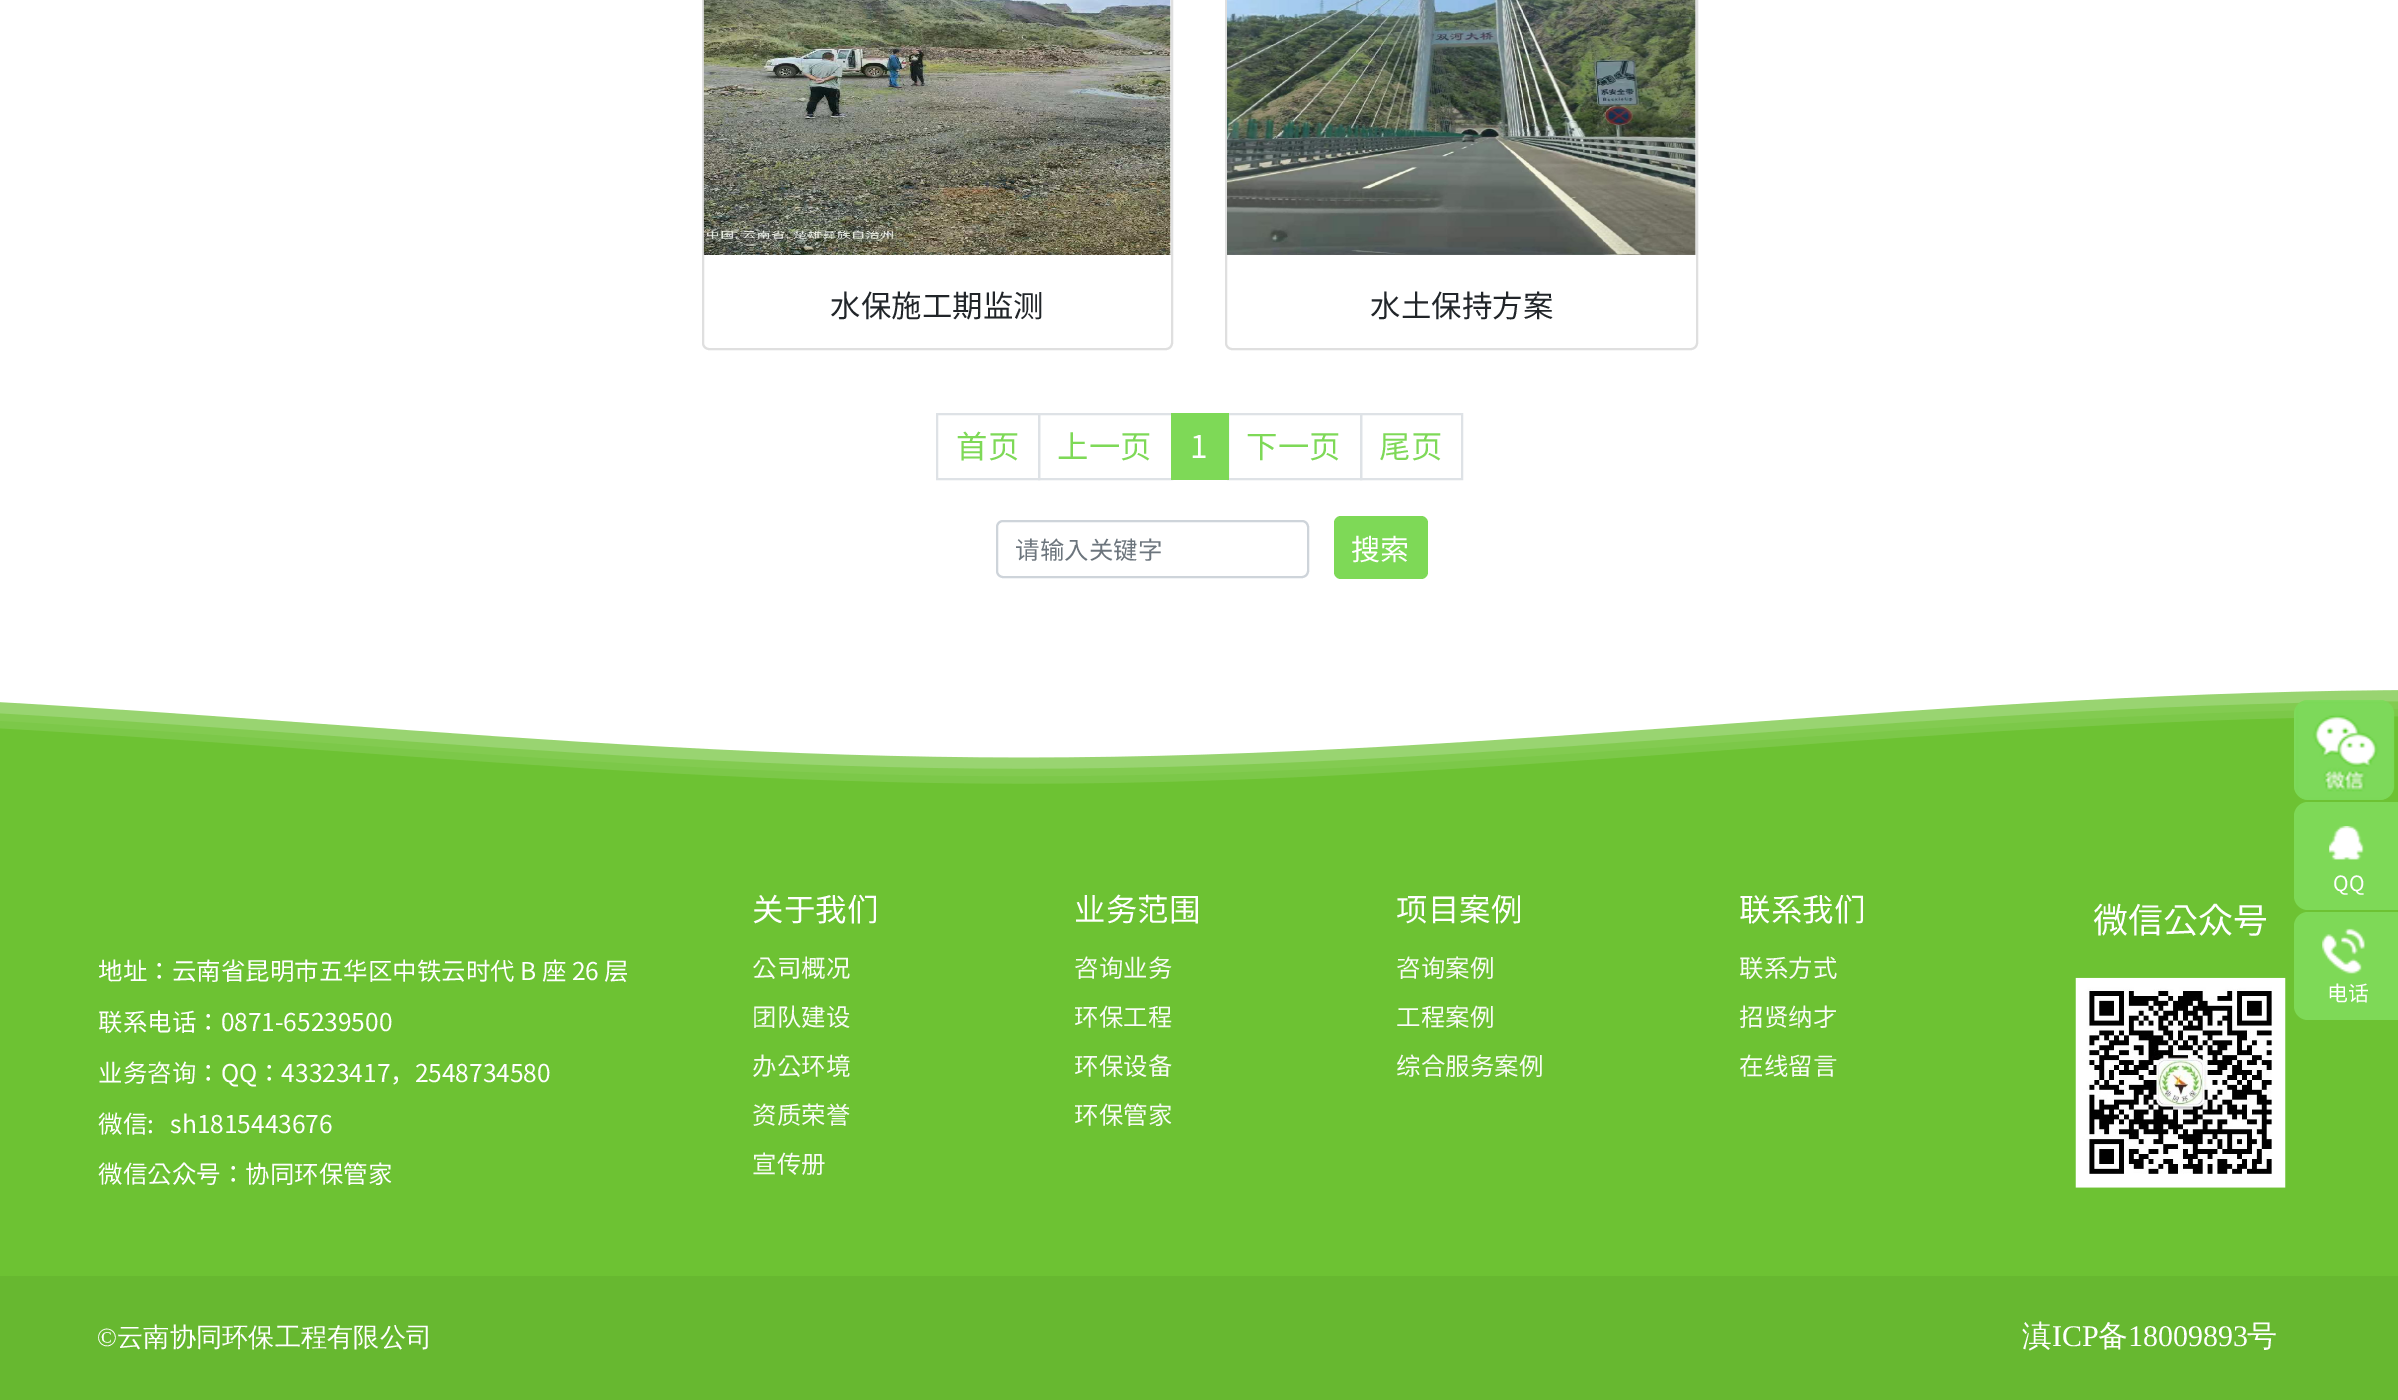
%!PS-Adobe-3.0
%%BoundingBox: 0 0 2398 1400
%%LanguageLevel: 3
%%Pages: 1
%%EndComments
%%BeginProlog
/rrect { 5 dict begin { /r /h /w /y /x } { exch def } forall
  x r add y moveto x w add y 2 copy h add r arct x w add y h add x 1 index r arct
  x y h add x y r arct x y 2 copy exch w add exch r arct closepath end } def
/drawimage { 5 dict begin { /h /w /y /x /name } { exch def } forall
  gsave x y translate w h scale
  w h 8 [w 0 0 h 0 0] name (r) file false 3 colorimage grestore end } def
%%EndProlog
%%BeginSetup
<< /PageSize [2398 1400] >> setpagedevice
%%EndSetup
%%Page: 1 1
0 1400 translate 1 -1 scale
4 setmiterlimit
1 setgray
0 0 2398 1400 rectfill
0.875 setgray
2 setlinewidth
703 -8 469 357 6 rrect stroke
(images/1.raw) 703 0 468 255 drawimage
1226 -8 471 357 6 rrect stroke
(images/2.raw) 1227 0 469 255 drawimage
0.871 0.886 0.902 setrgbcolor
937 414 102 65 rectstroke
1039 414 133 65 rectstroke
1228 414 133 65 rectstroke
0.494 0.851 0.341 setrgbcolor
1171 413 58 67 rectfill
0.871 0.886 0.902 setrgbcolor
1361 414 101 65 rectstroke
0.808 0.831 0.855 setrgbcolor
997 521 311 56 6 rrect stroke
0.494 0.851 0.341 setrgbcolor
1334 516 94 63 7 rrect fill
(images/3.raw) 0 690 2398 98 drawimage
0.427 0.761 0.2 setrgbcolor
0 788 2398 488 rectfill
(images/4.raw) 2075 977 211 211 drawimage
0.404 0.722 0.188 setrgbcolor
0 1276 2398 124 rectfill
0.494 0.851 0.341 setrgbcolor
2294 700 100 100 14 rrect fill
(images/5.raw) 2294 700 101 100 drawimage
2294 802 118 108 14 rrect fill
(images/6.raw) 2329 826 35 34 drawimage
2294 912 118 108 14 rrect fill
(images/7.raw) 2322 928 43 46 drawimage
/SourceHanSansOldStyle-Regular [30.5 0 0 -30.5 0 0] selectfont
0.129 0.145 0.161 setrgbcolor
830 317 moveto (水保施工期监测) show
1370 317 moveto (水土保持方案) show
/SourceHanSansOldStyle-Regular [31.5 0 0 -31.5 0 0] selectfont
0.494 0.851 0.341 setrgbcolor
956 458 moveto (首页) show
1057 458 moveto (上一页) show
1 setgray
1190 458 moveto (1) show
0.494 0.851 0.341 setrgbcolor
1246 458 moveto (下一页) show
1379 458 moveto (尾页) show
/SourceHanSansOldStyle-Regular [24.5 0 0 -24.5 0 0] selectfont
0.424 0.459 0.49 setrgbcolor
1015 559 moveto (请输入关键字) show
/SourceHanSansOldStyle-Regular [29 0 0 -29 0 0] selectfont
1 setgray
1351 560 moveto (搜索) show
/SourceHanSansOldStyle-Regular [31.5 0 0 -31.5 0 0] selectfont
752 921 moveto (关于我们) show
/SourceHanSansOldStyle-Regular [24.5 0 0 -24.5 0 0] selectfont
0.973 0.988 0.961 setrgbcolor
752 977 moveto (公司概况) show
752 1026 moveto (团队建设) show
752 1075 moveto (办公环境) show
752 1124 moveto (资质荣誉) show
752 1173 moveto (宣传册) show
/SourceHanSansOldStyle-Regular [31.5 0 0 -31.5 0 0] selectfont
1 setgray
1074 921 moveto (业务范围) show
/SourceHanSansOldStyle-Regular [24.5 0 0 -24.5 0 0] selectfont
0.973 0.988 0.961 setrgbcolor
1074 977 moveto (咨询业务) show
1074 1026 moveto (环保工程) show
1074 1075 moveto (环保设备) show
1074 1124 moveto (环保管家) show
/SourceHanSansOldStyle-Regular [31.5 0 0 -31.5 0 0] selectfont
1 setgray
1396 921 moveto (项目案例) show
/SourceHanSansOldStyle-Regular [24.5 0 0 -24.5 0 0] selectfont
0.973 0.988 0.961 setrgbcolor
1396 977 moveto (咨询案例) show
1396 1026 moveto (工程案例) show
1396 1075 moveto (综合服务案例) show
/SourceHanSansOldStyle-Regular [31.5 0 0 -31.5 0 0] selectfont
1 setgray
1739 921 moveto (联系我们) show
/SourceHanSansOldStyle-Regular [24.5 0 0 -24.5 0 0] selectfont
0.973 0.988 0.961 setrgbcolor
1739 977 moveto (联系方式) show
1739 1026 moveto (招贤纳才) show
1739 1075 moveto (在线留言) show
/SourceHanSansOldStyle-Regular [35 0 0 -35 0 0] selectfont
1 setgray
2093 933 moveto (微信公众号) show
/SourceHanSansOldStyle-Regular [24.5 0 0 -24.5 0 0] selectfont
98 980 moveto (地址：云南省昆明市五华区中铁云时代 B 座 26 层) show
98 1031 moveto (联系电话：0871-65239500) show
98 1082 moveto (业务咨询：QQ：43323417，2548734580) show
98 1133 moveto (微信:   sh1815443676) show
98 1183 moveto (微信公众号：协同环保管家) show
/LiberationSerif-Regular [26.25 0 0 -26.25 0 0] selectfont
97 1346 moveto (©) show
/WenQuanYiZenHei-Medium [26.25 0 0 -26.25 0 0] selectfont
117 1346 moveto (云南协同环保工程有限公司) show
/WenQuanYiZenHei-Medium [30 0 0 -30 0 0] selectfont
2022 1346 moveto (滇) show
/LiberationSerif-Regular [30 0 0 -30 0 0] selectfont
2052 1346 moveto (ICP) show
/WenQuanYiZenHei-Medium [30 0 0 -30 0 0] selectfont
2098 1346 moveto (备) show
/LiberationSerif-Regular [30 0 0 -30 0 0] selectfont
2128 1346 moveto (18009893) show
/WenQuanYiZenHei-Medium [30 0 0 -30 0 0] selectfont
2247 1346 moveto (号) show
/SourceHanSansOldStyle-Regular [21 0 0 -21 0 0] selectfont
2333 891 moveto (QQ) show
2327 1001 moveto (电话) show
showpage
%%EOF
